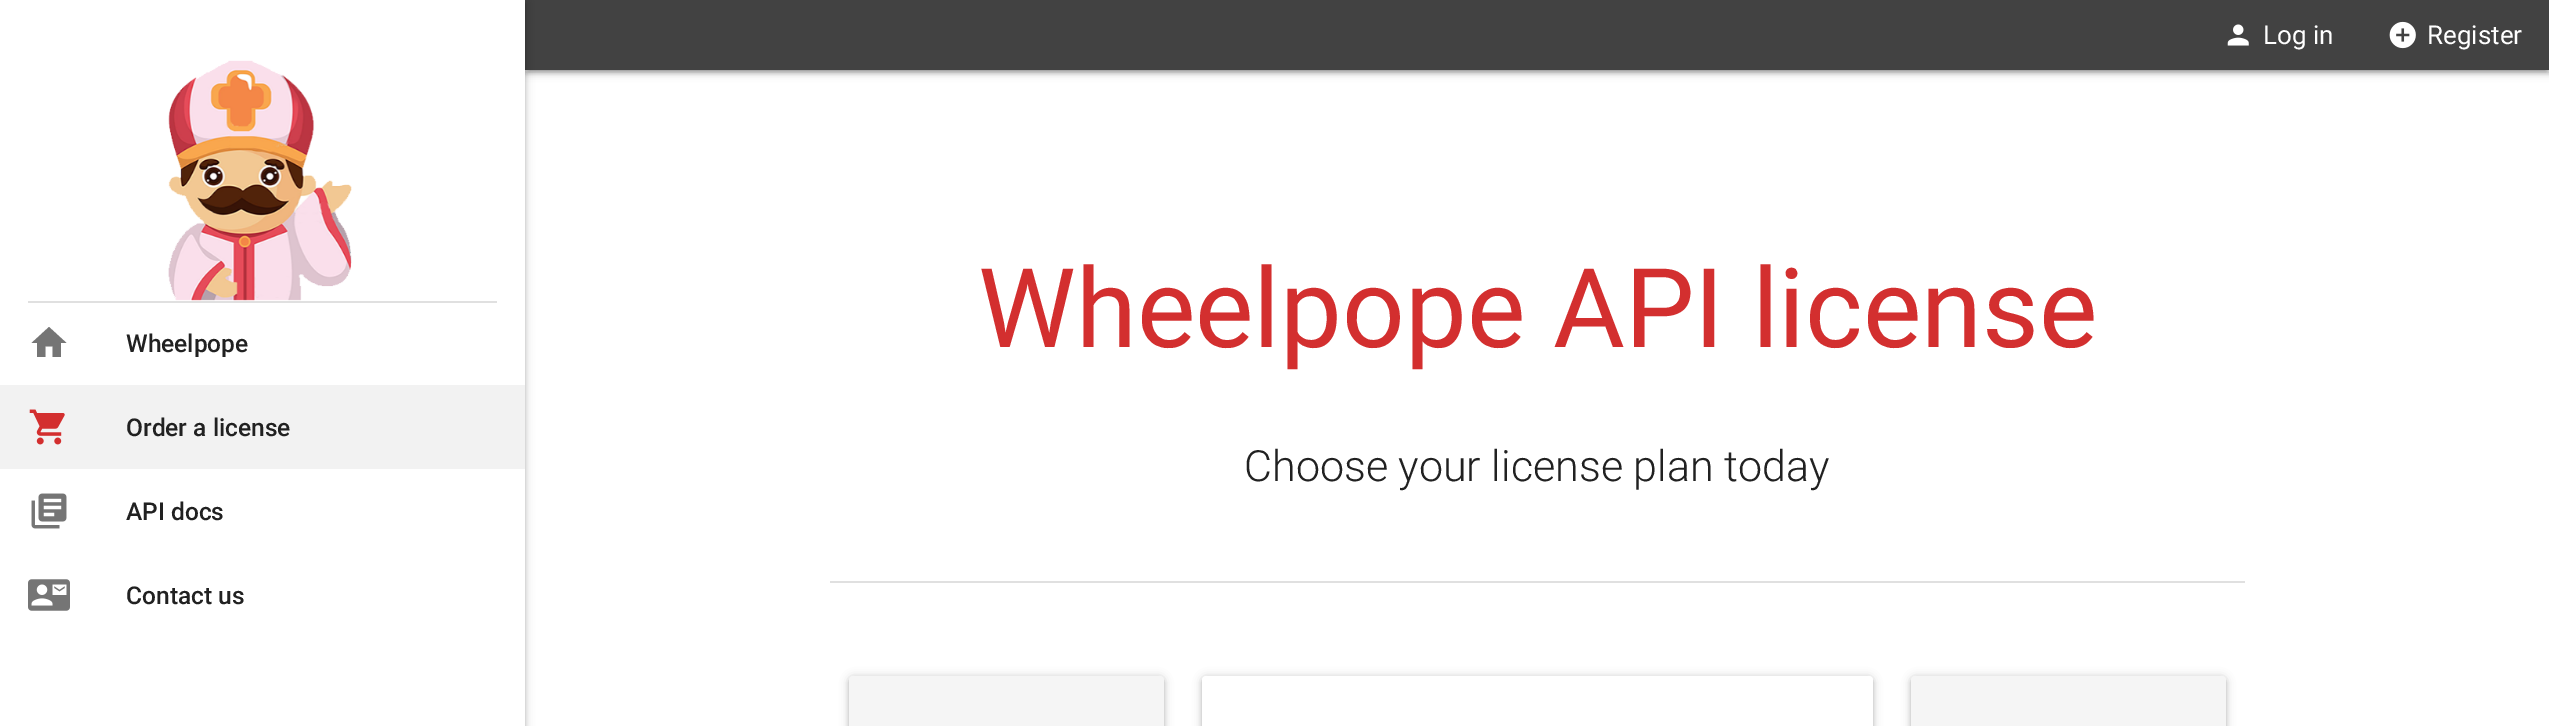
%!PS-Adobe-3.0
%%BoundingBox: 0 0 2549 726
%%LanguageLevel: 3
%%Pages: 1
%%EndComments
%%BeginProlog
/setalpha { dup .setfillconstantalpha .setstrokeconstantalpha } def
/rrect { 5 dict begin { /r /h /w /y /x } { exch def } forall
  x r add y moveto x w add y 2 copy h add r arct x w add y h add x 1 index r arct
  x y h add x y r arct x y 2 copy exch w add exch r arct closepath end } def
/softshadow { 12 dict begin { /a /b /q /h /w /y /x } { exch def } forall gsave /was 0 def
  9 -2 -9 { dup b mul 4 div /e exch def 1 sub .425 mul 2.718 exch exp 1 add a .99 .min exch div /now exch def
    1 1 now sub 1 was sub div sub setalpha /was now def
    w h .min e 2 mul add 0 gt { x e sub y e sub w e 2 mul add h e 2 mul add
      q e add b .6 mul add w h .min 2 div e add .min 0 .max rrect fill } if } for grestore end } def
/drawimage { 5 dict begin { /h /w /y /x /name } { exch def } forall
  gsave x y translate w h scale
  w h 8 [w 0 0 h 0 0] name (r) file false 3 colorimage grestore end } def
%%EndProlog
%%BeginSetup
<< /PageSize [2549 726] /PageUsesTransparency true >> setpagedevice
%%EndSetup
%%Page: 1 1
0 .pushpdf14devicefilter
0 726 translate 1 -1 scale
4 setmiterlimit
1 setgray
0 0 2549 726 rectfill
0 setgray
525 2 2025 70 0 4.5 0.2 softshadow
529 9 2017 63 0 1 0.12 softshadow
525 4 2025 70 0 2 0.14 softshadow
0.259 setgray
525 0 2024 70 rectfill
(images/1.raw) 2227 24 22 22 drawimage
(images/2.raw) 2389 21 27 28 drawimage
0 setgray
0 2 525 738 0 4.5 0.2 softshadow
0 4 525 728 0 2 0.14 softshadow
1 setgray
0 0 525 726 rectfill
(images/3.raw) 168 60 184 241 drawimage
0.878 setgray
28 301 469 2 rectfill
0.459 setgray
newpath 45.5 357 moveto 37 357 lineto 37 343 lineto 31.5 343 lineto 49 327 lineto 66.5 343 lineto 61 343 lineto 61 357 lineto 52.5 357 lineto 52.5 346.5 lineto 45.5 346.5 lineto closepath fill
0.949 setgray
0 385 525 84 rectfill
(images/4.raw) 29 409 36 36 drawimage
(images/5.raw) 31 493 36 36 drawimage
(images/6.raw) 28 579 42 32 drawimage
0.878 setgray
830 581 1415 2 rectfill
0 setgray
849 677 315 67 4 4.5 0.2 softshadow
849 679 315 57 4 2 0.14 softshadow
0.961 setgray
849 676 315 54 4 rrect fill
0 setgray
1202 677 671 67 4 4.5 0.2 softshadow
1202 679 671 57 4 2 0.14 softshadow
1 setgray
1202 676 671 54 4 rrect fill
0 setgray
1911 677 315 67 4 4.5 0.2 softshadow
1911 679 315 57 4 2 0.14 softshadow
0.961 setgray
1911 676 315 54 4 rrect fill
/Roboto-Regular [26 0 0 -26 0 0] selectfont
1 setgray
2263 44 moveto (Log in) show
2427 44 moveto (Register) show
/Roboto-Medium [24.5 0 0 -24.5 0 0] selectfont
0.129 setgray
126 352 moveto (Wheelpope) show
126 436 moveto (Order a license) show
126 520 moveto (API docs) show
126 604 moveto (Contact us) show
/Roboto-Regular [110.25 0 0 -110.25 0 0] selectfont
0.827 0.184 0.184 setrgbcolor
978 347 moveto (Wheelpope API license) show
/Roboto-Light [43 0 0 -43 0 0] selectfont
0.129 setgray
1244 481 moveto (Choose your license plan today) show
.poppdf14devicefilter showpage
%%EOF
